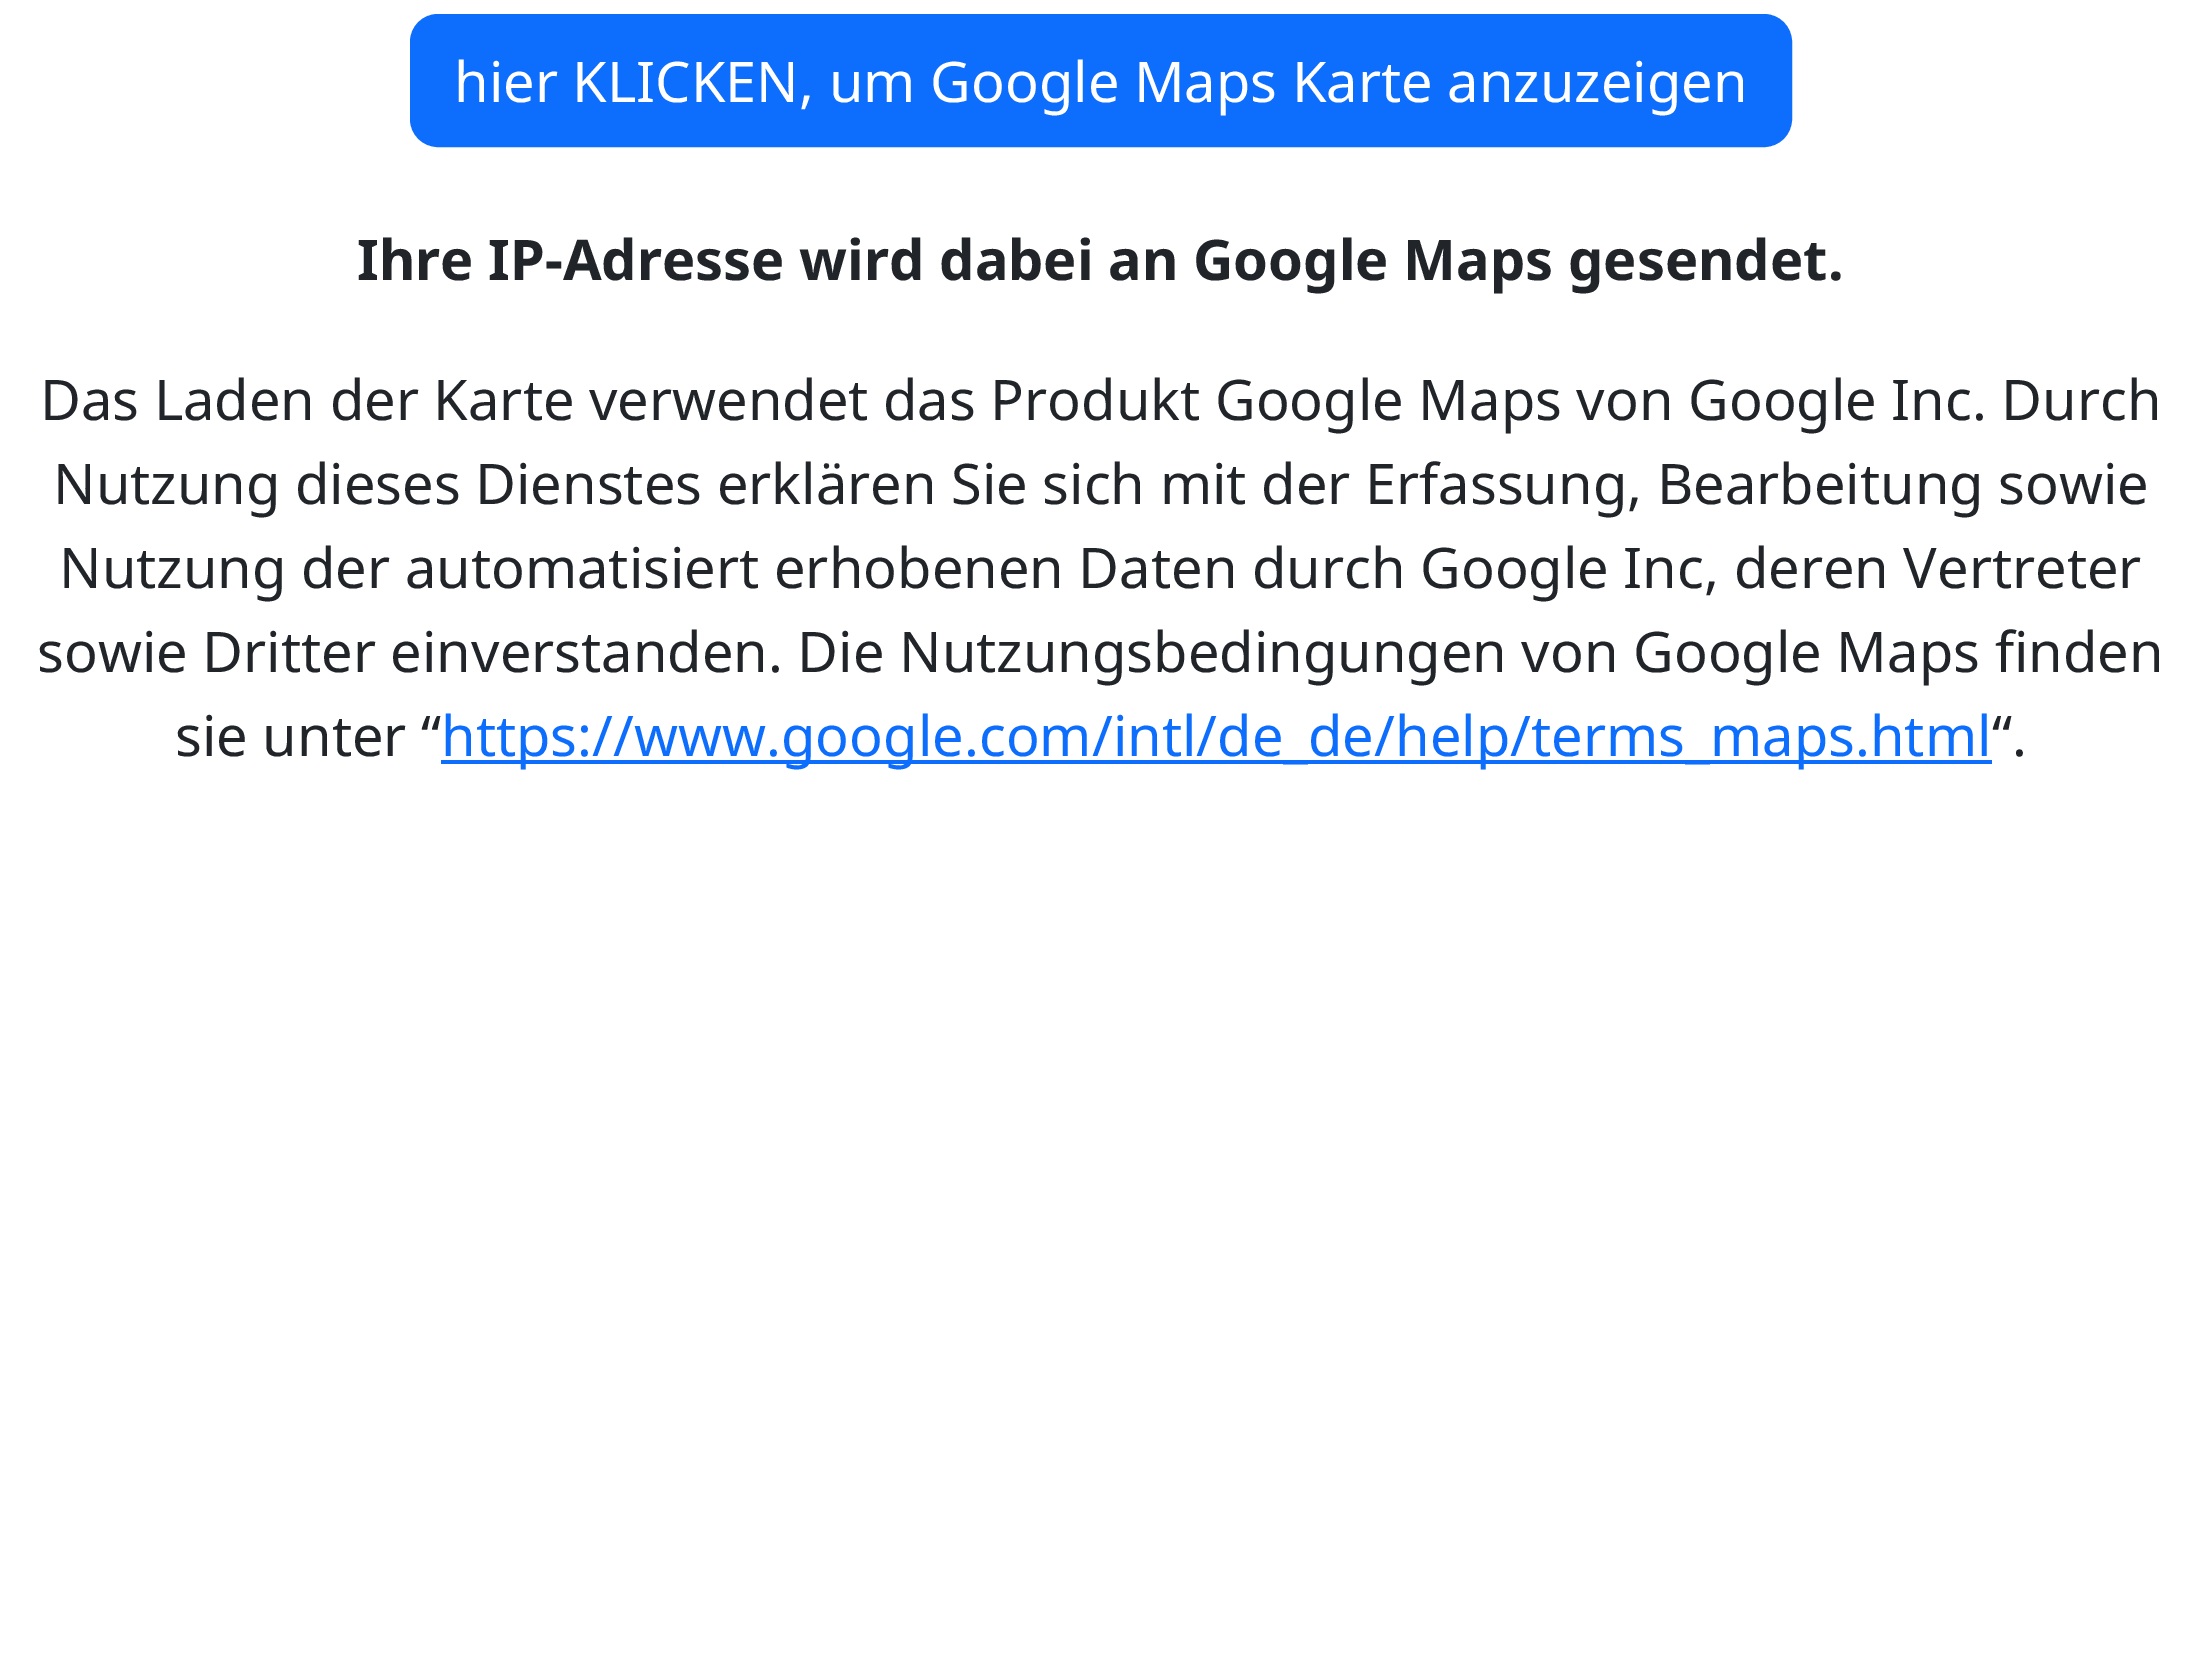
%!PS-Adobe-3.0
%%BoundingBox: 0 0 2200 1667
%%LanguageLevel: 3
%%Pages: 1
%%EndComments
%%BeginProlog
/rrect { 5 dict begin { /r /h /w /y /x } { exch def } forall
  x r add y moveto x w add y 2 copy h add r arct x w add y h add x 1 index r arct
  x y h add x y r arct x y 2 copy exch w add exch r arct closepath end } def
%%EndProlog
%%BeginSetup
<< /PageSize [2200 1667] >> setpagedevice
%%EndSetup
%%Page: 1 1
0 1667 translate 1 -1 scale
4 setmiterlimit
1 setgray
0 0 2200 1667 rectfill
0.051 0.431 0.992 setrgbcolor
412 16 1378 129 26 rrect gsave fill grestore
4 setlinewidth
stroke
441 760 1551 4 rectfill
/NotoSans-Regular [56 0 0 -56 0 0] selectfont
1 setgray
454 102 moveto (hier KLICKEN, um Google Maps Karte anzuzeigen) show
/NotoSans-Bold [56 0 0 -56 0 0] selectfont
0.129 0.145 0.161 setrgbcolor
357 280 moveto (Ihre IP-Adresse wird dabei an Google Maps gesendet.) show
/NotoSans-Regular [56 0 0 -56 0 0] selectfont
40 420 moveto (Das Laden der Karte verwendet das Produkt Google Maps von Google Inc. Durch) show
53 504 moveto (Nutzung dieses Dienstes erklären Sie sich mit der Erfassung, Bearbeitung sowie) show
59 588 moveto (Nutzung der automatisiert erhobenen Daten durch Google Inc, deren Vertreter) show
37 672 moveto (sowie Dritter einverstanden. Die Nutzungsbedingungen von Google Maps finden) show
175 756 moveto (sie unter “) show
0.051 0.431 0.992 setrgbcolor
441 756 moveto (https://www.google.com/intl/de_de/help/terms_maps.html) show
0.129 0.145 0.161 setrgbcolor
1992 756 moveto (“.) show
showpage
%%EOF
